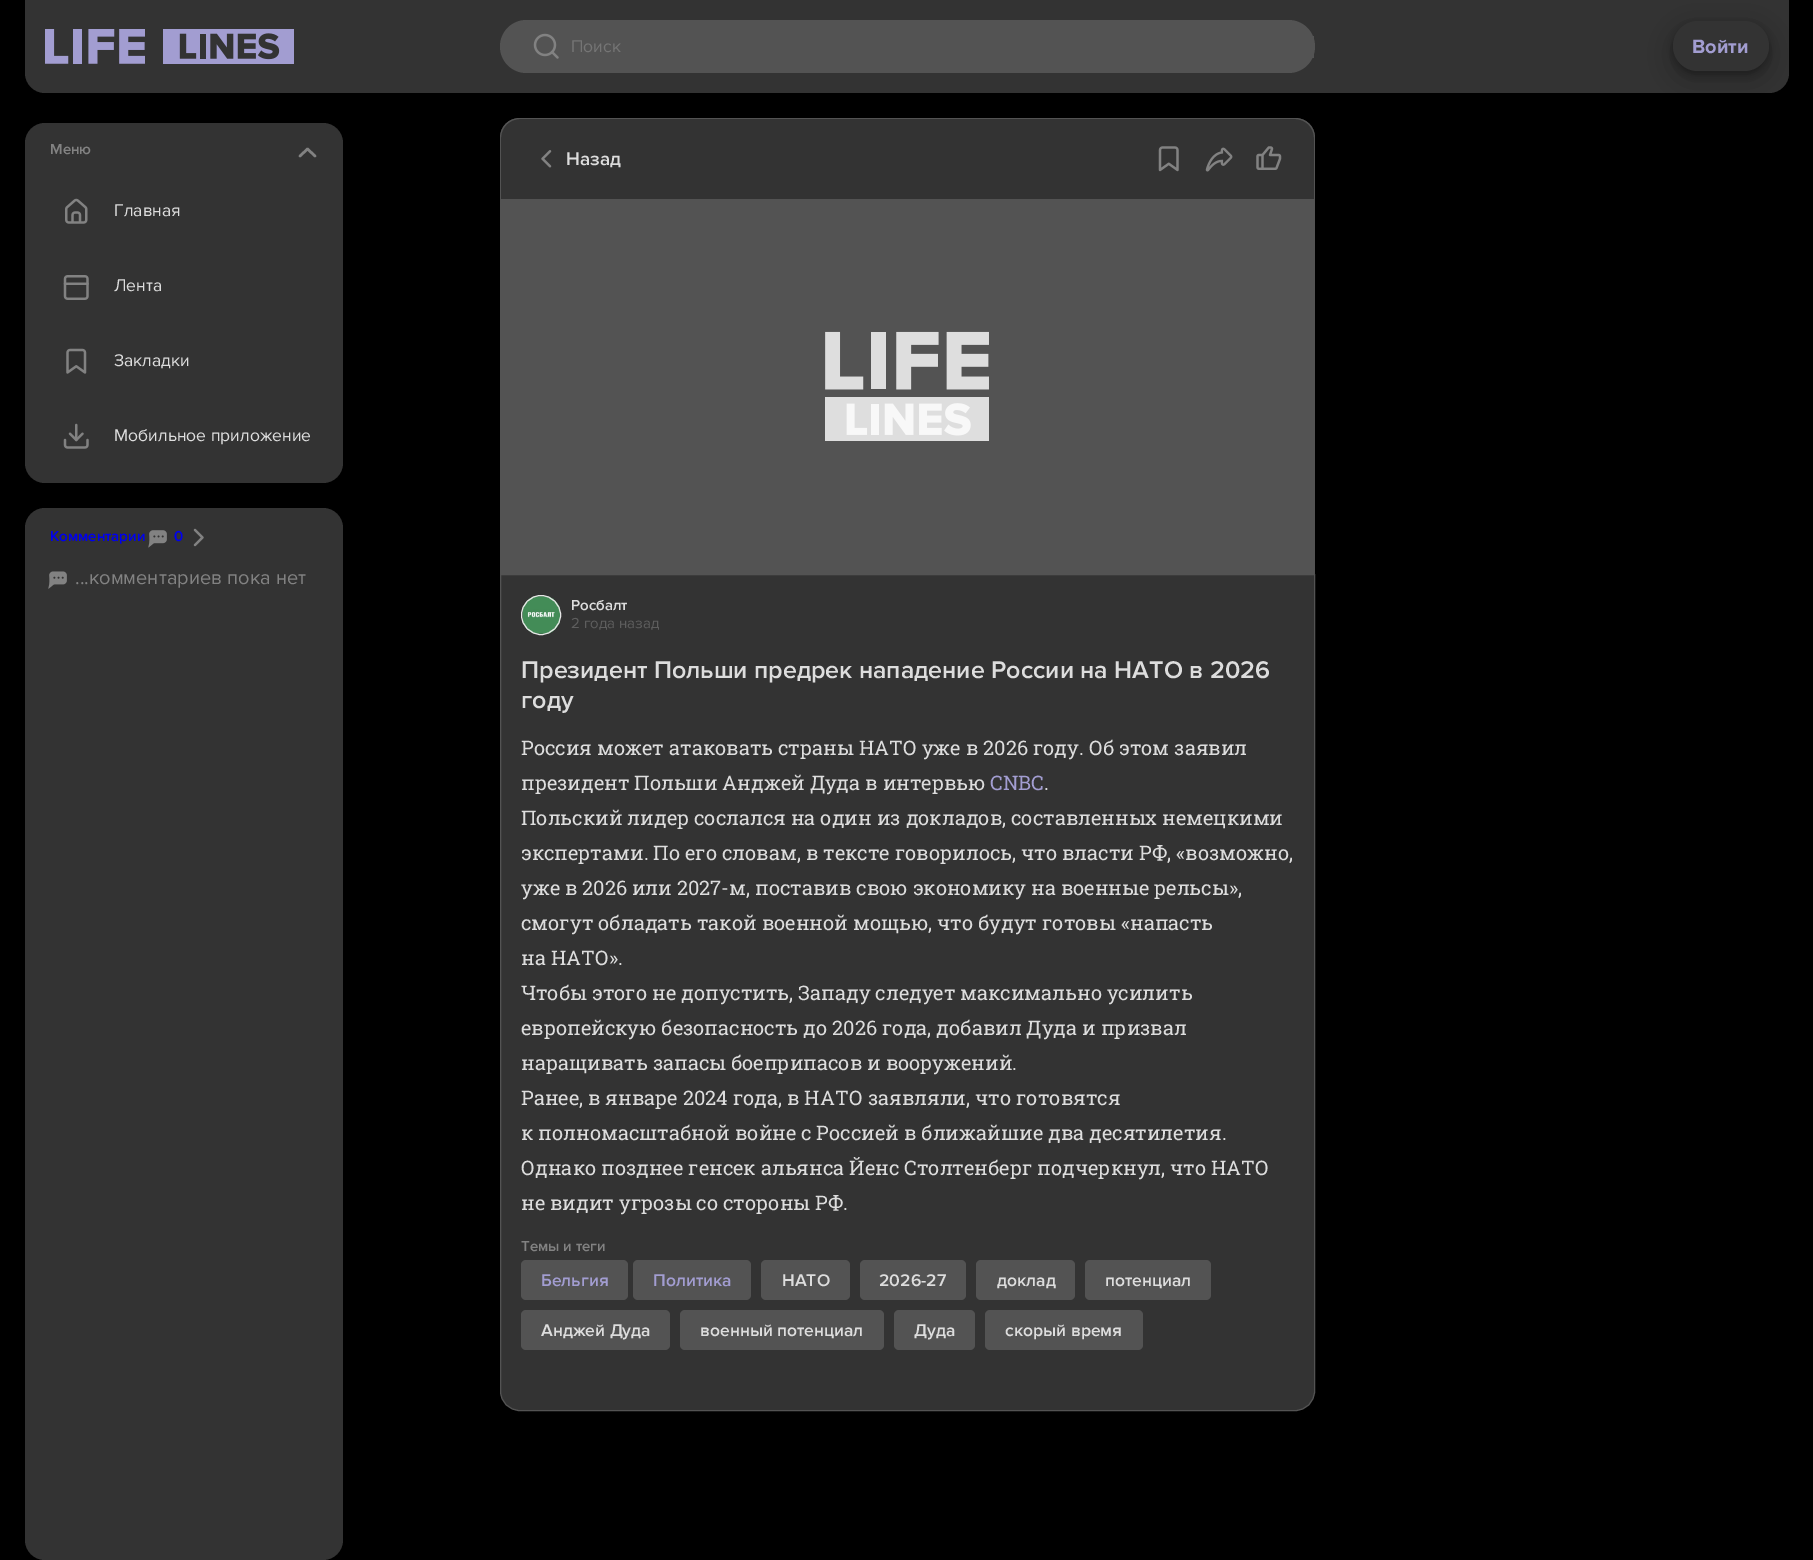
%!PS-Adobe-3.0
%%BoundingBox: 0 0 1813 1560
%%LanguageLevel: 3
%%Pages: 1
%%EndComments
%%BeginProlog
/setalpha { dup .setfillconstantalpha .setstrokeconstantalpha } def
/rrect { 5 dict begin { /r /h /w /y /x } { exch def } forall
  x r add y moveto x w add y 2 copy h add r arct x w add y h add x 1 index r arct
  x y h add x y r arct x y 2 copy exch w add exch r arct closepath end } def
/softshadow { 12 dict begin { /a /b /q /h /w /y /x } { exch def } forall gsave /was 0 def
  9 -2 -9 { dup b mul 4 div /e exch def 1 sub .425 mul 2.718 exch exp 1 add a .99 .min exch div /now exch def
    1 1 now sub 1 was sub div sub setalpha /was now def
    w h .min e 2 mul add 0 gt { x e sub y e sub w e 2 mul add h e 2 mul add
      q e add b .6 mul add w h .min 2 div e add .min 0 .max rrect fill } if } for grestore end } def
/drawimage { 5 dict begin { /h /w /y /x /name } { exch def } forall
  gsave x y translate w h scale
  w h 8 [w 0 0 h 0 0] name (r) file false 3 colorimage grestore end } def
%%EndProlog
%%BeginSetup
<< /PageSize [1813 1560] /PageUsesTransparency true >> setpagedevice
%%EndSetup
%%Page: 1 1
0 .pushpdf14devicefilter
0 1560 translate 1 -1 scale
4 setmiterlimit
0 setgray
0 0 1813 1560 rectfill
0.2 setgray
newpath 25 0 moveto 1789 0 lineto 1789 73 lineto 1789 84 1780 93 1769 93 curveto 45 93 lineto 34 93 25 84 25 73 curveto closepath fill
(images/1.raw) 45 29 249 35 drawimage
0.325 setgray
500 20 815 53 26.5 rrect fill
(images/2.raw) 533 33 26 26 drawimage
1312 36 2 22 rectfill
0 setgray
1673 29 96 50 25 15 0.25 softshadow
1673 24 96 50 25 4 0.25 softshadow
0.2 setgray
1673 21 96 50 25 rrect fill
25 123 318 360 20 rrect fill
0.51 setgray
2.5 setlinewidth
1 setlinecap
1 setlinejoin
newpath 300 156 moveto 307.5 149 lineto 315 156 lineto stroke
(images/3.raw) 65 198 23 26 drawimage
(images/4.raw) 63 275 26 25 drawimage
(images/5.raw) 66 348 21 26 drawimage
(images/6.raw) 63 423 26 26 drawimage
0.2 setgray
25 508 318 1052 20 rrect fill
(images/7.raw) 148 530 19 18 drawimage
(images/8.raw) 193 528 11 19 drawimage
(images/9.raw) 48 571 19 18 drawimage
newpath 520 118 moveto 1295 118 lineto 1306 118 1315 127 1315 138 curveto 1315 199 lineto 500 199 lineto 500 138 lineto 500 127 509 118 520 118 curveto closepath fill
0.325 setgray
newpath 520 118 moveto 1295 118 lineto 1306 118 1315 126 1315 138 curveto 1315 199 lineto 500 199 lineto 500 138 lineto 500 126 509 118 520 118 curveto closepath 520 119 moveto 1295 119 lineto 1305 119 1314 127 1314 138 curveto 1314 199 lineto 501 199 lineto 501 138 lineto 501 127 510 119 520 119 curveto closepath eofill
(images/10.raw) 541 150 11 18 drawimage
(images/11.raw) 1158 146 21 26 drawimage
(images/12.raw) 1205 147 28 25 drawimage
(images/13.raw) 1256 146 26 24 drawimage
500 199 815 375 rectfill
(images/14.raw) 825 331 164 110 drawimage
0.2 setgray
newpath 500.5 574.5 moveto 1314.5 574.5 lineto 1314.5 1391 lineto 1314.5 1402 1306 1410.5 1295 1410.5 curveto 520 1410.5 lineto 509 1410.5 500.5 1402 500.5 1391 curveto closepath gsave fill grestore
0.325 setgray
1 setlinewidth
0 setlinecap
0 setlinejoin
stroke
(images/15.raw) 522 596 38 38 drawimage
0.902 setgray
newpath 541 615 19.5 0 360 arc closepath stroke
0.325 setgray
521 1260 107 40 5 rrect fill
633 1260 118 40 5 rrect fill
761 1260 89 40 5 rrect fill
860 1260 106 40 5 rrect fill
976 1260 99 40 5 rrect fill
1085 1260 126 40 5 rrect fill
521 1310 149 40 5 rrect fill
680 1310 204 40 5 rrect fill
894 1310 81 40 5 rrect fill
985 1310 158 40 5 rrect fill
/ProximaNova-Regular [17.5 0 0 -17.5 0 0] selectfont
0.459 setgray
571 52 moveto (Поиск) show
/ProximaNova-Bold [20 0 0 -20 0 0] selectfont
0.635 0.616 0.82 setrgbcolor
1692 53 moveto (Войти) show
/ProximaNova-SemiBold [15 0 0 -15 0 0] selectfont
0.51 setgray
50 154 moveto (Меню) show
/ProximaNova-Regular [17.5 0 0 -17.5 0 0] selectfont
0.867 setgray
114 216 moveto (Главная) show
114 291 moveto (Лента) show
114 366 moveto (Закладки) show
114 441 moveto (Мобильное приложение) show
/ProximaNova-SemiBold [15 0 0 -15 0 0] selectfont
0 0 0.933 setrgbcolor
50 541 moveto (Комментарии) show
174 541 moveto (0) show
/ProximaNova-Regular [20 0 0 -20 0 0] selectfont
0.51 setgray
75 584 moveto (...комментариев пока нет) show
/ProximaNova-SemiBold [19 0 0 -19 0 0] selectfont
0.867 setgray
566 165 moveto (Назад) show
/ProximaNova-SemiBold [15 0 0 -15 0 0] selectfont
571 610 moveto (Росбалт) show
/ProximaNova-Regular [15 0 0 -15 0 0] selectfont
0.369 setgray
571 628 moveto (2 года назад) show
/ProximaNova-SemiBold [25 0 0 -25 0 0] selectfont
0.867 setgray
521 678 moveto (Президент Польши предрек нападение России на НАТО в 2026) show
521 708 moveto (году) show
/RobotoSlab-Regular [20 0 0 -20 0 0] selectfont
521 755 moveto (Россия может атаковать страны НАТО уже в 2026 году. Об этом заявил) show
521 790 moveto (президент Польши Анджей Дуда в интервью) show
0.635 0.616 0.82 setrgbcolor
990 790 moveto (CNBC) show
0.867 setgray
1044 790 moveto (.) show
521 825 moveto (Польский лидер сослался на один из докладов, составленных немецкими) show
521 860 moveto (экспертами. По его словам, в тексте говорилось, что власти РФ, «возможно,) show
521 895 moveto (уже в 2026 или 2027-м, поставив свою экономику на военные рельсы»,) show
521 930 moveto (смогут обладать такой военной мощью, что будут готовы «напасть) show
521 965 moveto (на НАТО».) show
521 1000 moveto (Чтобы этого не допустить, Западу следует максимально усилить) show
521 1035 moveto (европейскую безопасность до 2026 года, добавил Дуда и призвал) show
521 1070 moveto (наращивать запасы боеприпасов и вооружений.) show
521 1105 moveto (Ранее, в январе 2024 года, в НАТО заявляли, что готовятся) show
521 1140 moveto (к полномасштабной войне с Россией в ближайшие два десятилетия.) show
521 1175 moveto (Однако позднее генсек альянса Йенс Столтенберг подчеркнул, что НАТО) show
521 1210 moveto (не видит угрозы со стороны РФ.) show
/ProximaNova-SemiBold [15 0 0 -15 0 0] selectfont
0.51 setgray
521 1251 moveto (Темы и теги) show
/ProximaNova-SemiBold [17.5 0 0 -17.5 0 0] selectfont
0.635 0.616 0.82 setrgbcolor
541 1286 moveto (Бельгия) show
653 1286 moveto (Политика) show
0.867 setgray
782 1286 moveto (НАТО) show
879 1286 moveto (2026-27) show
997 1286 moveto (доклад) show
1105 1286 moveto (потенциал) show
541 1336 moveto (Анджей Дуда) show
700 1336 moveto (военный потенциал) show
914 1336 moveto (Дуда) show
1005 1336 moveto (скорый время) show
.poppdf14devicefilter showpage
%%EOF
